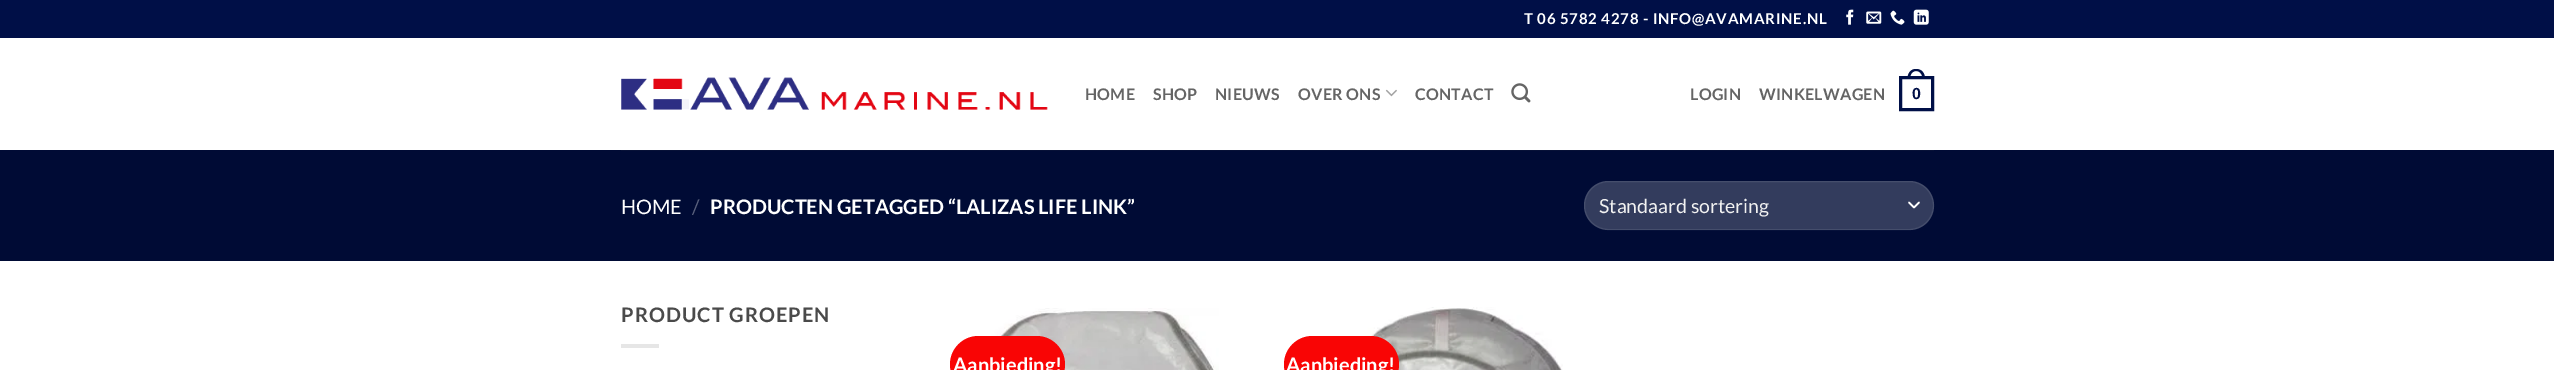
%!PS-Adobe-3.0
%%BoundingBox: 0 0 2554 370
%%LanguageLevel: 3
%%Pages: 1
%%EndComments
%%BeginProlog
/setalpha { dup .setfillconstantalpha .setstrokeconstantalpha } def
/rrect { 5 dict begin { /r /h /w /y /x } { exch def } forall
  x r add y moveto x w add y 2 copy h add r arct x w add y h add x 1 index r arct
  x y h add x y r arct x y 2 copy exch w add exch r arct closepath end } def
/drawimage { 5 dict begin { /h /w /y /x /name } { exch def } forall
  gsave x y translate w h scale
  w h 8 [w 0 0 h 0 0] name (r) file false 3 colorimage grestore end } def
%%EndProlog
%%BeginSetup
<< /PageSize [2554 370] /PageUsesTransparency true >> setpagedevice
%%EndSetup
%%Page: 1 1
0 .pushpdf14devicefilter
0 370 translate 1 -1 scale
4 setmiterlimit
1 setgray
0 0 2554 370 rectfill
0 0.059 0.278 setrgbcolor
0 0 2554 38 rectfill
(images/1.raw) 1846 9 8 16 drawimage
(images/2.raw) 1866 11 16 13 drawimage
(images/3.raw) 1890 10 15 15 drawimage
(images/4.raw) 1913 9 16 16 drawimage
(images/5.raw) 621 77 427 33 drawimage
(images/6.raw) 1385 89 12 8 drawimage
(images/7.raw) 1511 83 20 20 drawimage
3 setlinewidth
1900.5 77.5 32 32 rectstroke
newpath 1916 69 moveto 1922 69 1925 73.5 1925 79 curveto 1907.5 79 lineto 1907.5 73.5 1910.5 69 1916 69 curveto closepath 1916 71 moveto 1920.5 71 1922.5 75 1922.5 79 curveto 1910 79 lineto 1910 75 1912 71 1916 71 curveto closepath eofill
0 0.043 0.208 setrgbcolor
0 150 2554 111 rectfill
0.027 0.067 0.216 setrgbcolor
621 150 1313 1 rectfill
0.2 0.235 0.365 setrgbcolor
1584 181 350 49 24.5 rrect fill
1 setgray
1.7 setlinewidth
1 setlinecap
1 setlinejoin
newpath 1909 202.5 moveto 1914 207.5 lineto 1919 202.5 lineto stroke
0.09 setalpha
1 setlinewidth
0 setlinecap
0 setlinejoin
1584.5 181.5 349 48 24 rrect stroke
1 setalpha
0.902 setgray
621 344 38 4 rectfill
(images/8.raw) 991 308 228 62 drawimage
0.976 0.02 0.02 setrgbcolor
950 336 115 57 28.5 rrect fill
(images/9.raw) 1338 307 225 63 drawimage
1284 336 115 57 28.5 rrect fill
/Lato-Bold [15 0 0 -15 0 0] selectfont
1 setgray
1524 24 moveto 0.75 0 (T 06 5782 4278 - INFO@AVAMARINE.NL) ashow
/Lato-Bold [16 0 0 -16 0 0] selectfont
0.396 setgray
1085 100 moveto 0.25 0 (HOME) ashow
1153 100 moveto 0.25 0 (SHOP) ashow
1215 100 moveto 0.25 0 (NIEUWS) ashow
1298 100 moveto 0.25 0 (OVER ONS) ashow
1415 100 moveto 0.25 0 (CONTACT) ashow
1690 100 moveto 0.25 0 (LOGIN) ashow
1759 100 moveto 0.25 0 (WINKELWAGEN) ashow
/LiberationSans-Bold [16 0 0 -16 0 0] selectfont
0 0.059 0.278 setrgbcolor
1912 99 moveto 0.25 0 (0) ashow
/Lato-Regular [20 0 0 -20 0 0] selectfont
1 setgray
621 214 moveto (HOME) show
0.349 0.376 0.486 setrgbcolor
692 214 moveto (/) show
/Lato-Bold [20 0 0 -20 0 0] selectfont
1 setgray
710 214 moveto (PRODUCTEN GETAGGED “LALIZAS LIFE LINK”) show
/Lato-Regular [19.5 0 0 -19.5 0 0] selectfont
0.945 setgray
1599 213 moveto (Standaard sortering) show
/Lato-Bold [20 0 0 -20 0 0] selectfont
0.29 setgray
621 322 moveto 1 0 (PRODUCT GROEPEN) ashow
1 setgray
953 372 moveto (Aanbieding!) show
1286 372 moveto (Aanbieding!) show
.poppdf14devicefilter showpage
%%EOF
